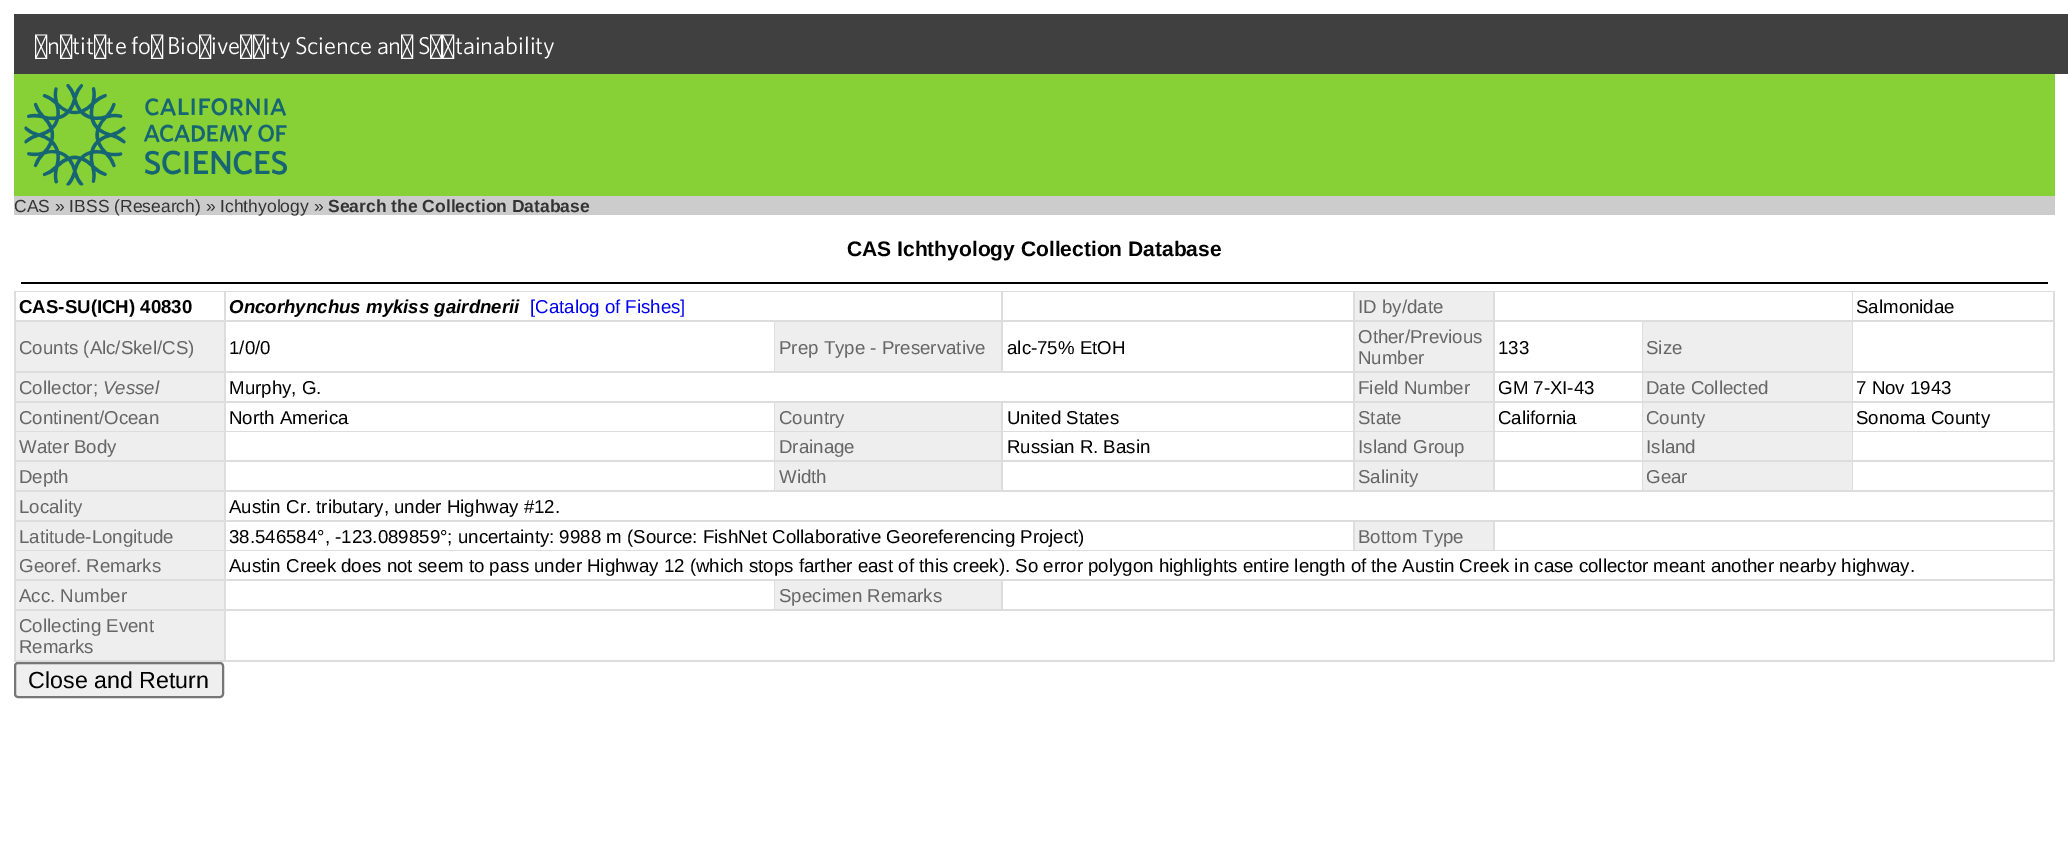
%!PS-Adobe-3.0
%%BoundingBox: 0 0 2068 852
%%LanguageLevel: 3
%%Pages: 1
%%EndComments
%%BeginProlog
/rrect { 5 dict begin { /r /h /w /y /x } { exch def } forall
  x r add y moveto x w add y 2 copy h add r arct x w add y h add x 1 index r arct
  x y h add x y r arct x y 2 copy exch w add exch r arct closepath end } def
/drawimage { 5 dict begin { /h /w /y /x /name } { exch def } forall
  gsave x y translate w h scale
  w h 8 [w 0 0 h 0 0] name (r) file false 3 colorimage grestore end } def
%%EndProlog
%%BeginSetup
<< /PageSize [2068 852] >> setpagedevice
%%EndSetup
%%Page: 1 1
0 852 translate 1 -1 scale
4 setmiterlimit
1 setgray
0 0 2068 852 rectfill
0.251 setgray
14 14 2054 60 rectfill
0.529 0.816 0.212 setrgbcolor
14 74 2041 122 rectfill
(images/1.raw) 24 84 263 102 drawimage
0.8 setgray
14 196 2041 19 rectfill
0 setgray
21 282 2027 2 rectfill
0.867 setgray
14 291 2041 371 rectfill
1 setgray
16 292 208 28 rectfill
226 292 775 28 rectfill
1003 292 350 28 rectfill
0.933 setgray
1355 292 138 28 rectfill
1 setgray
1495 292 357 28 rectfill
1853 292 200 28 rectfill
0.933 setgray
16 322 208 49 rectfill
1 setgray
226 322 548 49 rectfill
0.933 setgray
775 322 226 49 rectfill
1 setgray
1003 322 350 49 rectfill
0.933 setgray
1355 322 138 49 rectfill
1 setgray
1495 322 147 49 rectfill
0.933 setgray
1643 322 209 49 rectfill
1 setgray
1853 322 200 49 rectfill
0.933 setgray
16 373 208 28 rectfill
1 setgray
226 373 1127 28 rectfill
0.933 setgray
1355 373 138 28 rectfill
1 setgray
1495 373 147 28 rectfill
0.933 setgray
1643 373 209 28 rectfill
1 setgray
1853 373 200 28 rectfill
0.933 setgray
16 403 208 28 rectfill
1 setgray
226 403 548 28 rectfill
0.933 setgray
775 403 226 28 rectfill
1 setgray
1003 403 350 28 rectfill
0.933 setgray
1355 403 138 28 rectfill
1 setgray
1495 403 147 28 rectfill
0.933 setgray
1643 403 209 28 rectfill
1 setgray
1853 403 200 28 rectfill
0.933 setgray
16 432 208 28 rectfill
1 setgray
226 432 548 28 rectfill
0.933 setgray
775 432 226 28 rectfill
1 setgray
1003 432 350 28 rectfill
0.933 setgray
1355 432 138 28 rectfill
1 setgray
1495 432 147 28 rectfill
0.933 setgray
1643 432 209 28 rectfill
1 setgray
1853 432 200 28 rectfill
0.933 setgray
16 462 208 28 rectfill
1 setgray
226 462 548 28 rectfill
0.933 setgray
775 462 226 28 rectfill
1 setgray
1003 462 350 28 rectfill
0.933 setgray
1355 462 138 28 rectfill
1 setgray
1495 462 147 28 rectfill
0.933 setgray
1643 462 209 28 rectfill
1 setgray
1853 462 200 28 rectfill
0.933 setgray
16 492 208 28 rectfill
1 setgray
226 492 1827 28 rectfill
0.933 setgray
16 522 208 28 rectfill
1 setgray
226 522 1127 28 rectfill
0.933 setgray
1355 522 138 28 rectfill
1 setgray
1495 522 558 28 rectfill
0.933 setgray
16 551 208 28 rectfill
1 setgray
226 551 1827 28 rectfill
0.933 setgray
16 581 208 28 rectfill
1 setgray
226 581 548 28 rectfill
0.933 setgray
775 581 226 28 rectfill
1 setgray
1003 581 1050 28 rectfill
0.933 setgray
16 611 208 49 rectfill
1 setgray
226 611 1827 49 rectfill
0.937 setgray
15 663 208 34 3 rrect gsave fill grestore
0.463 setgray
2 setlinewidth
stroke
/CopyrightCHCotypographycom-Light [24.5 0 0 -24.5 0 0] selectfont
1 setgray
35 54 moveto -1.5 0 32 (Institute for Biodiversity Science and Sustainability) widthshow
/LiberationSans-Regular [17.5 0 0 -17.5 0 0] selectfont
0.2 setgray
14 212 moveto (CAS » IBSS \(Research\) » Ichthyology ») show
/LiberationSans-Bold [17.5 0 0 -17.5 0 0] selectfont
328 212 moveto (Search the Collection Database) show
/LiberationSans-Bold [21 0 0 -21 0 0] selectfont
0 setgray
847 256 moveto (CAS Ichthyology Collection Database) show
/LiberationSans-Bold [18.67 0 0 -18.67 0 0] selectfont
19 313 moveto (CAS-SU\(ICH\) 40830) show
/LiberationSans-BoldItalic [18.67 0 0 -18.67 0 0] selectfont
229 313 moveto (Oncorhynchus mykiss gairdnerii) show
/LiberationSans-Regular [18.67 0 0 -18.67 0 0] selectfont
0 0 0.933 setrgbcolor
530 313 moveto ([Catalog of Fishes]) show
0.4 setgray
1358 313 moveto (ID by/date) show
0 setgray
1856 313 moveto (Salmonidae) show
0.4 setgray
19 354 moveto (Counts \(Alc/Skel/CS\)) show
0 setgray
229 354 moveto (1/0/0) show
0.4 setgray
779 354 moveto (Prep Type - Preservative) show
0 setgray
1007 354 moveto (alc-75% EtOH) show
0.4 setgray
1358 343 moveto (Other/Previous) show
1358 364 moveto (Number) show
0 setgray
1498 354 moveto (133) show
0.4 setgray
1646 354 moveto (Size) show
19 394 moveto (Collector;) show
/LiberationSans-Italic [18.67 0 0 -18.67 0 0] selectfont
103 394 moveto (Vessel) show
/LiberationSans-Regular [18.67 0 0 -18.67 0 0] selectfont
0 setgray
229 394 moveto (Murphy, G.) show
0.4 setgray
1358 394 moveto (Field Number) show
0 setgray
1498 394 moveto (GM 7-XI-43) show
0.4 setgray
1646 394 moveto (Date Collected) show
0 setgray
1856 394 moveto (7 Nov 1943) show
0.4 setgray
19 424 moveto (Continent/Ocean) show
0 setgray
229 424 moveto (North America) show
0.4 setgray
779 424 moveto (Country) show
0 setgray
1007 424 moveto (United States) show
0.4 setgray
1358 424 moveto (State) show
0 setgray
1498 424 moveto (California) show
0.4 setgray
1646 424 moveto (County) show
0 setgray
1856 424 moveto (Sonoma County) show
0.4 setgray
19 453 moveto (Water Body) show
779 453 moveto (Drainage) show
0 setgray
1007 453 moveto (Russian R. Basin) show
0.4 setgray
1358 453 moveto (Island Group) show
1646 453 moveto (Island) show
19 483 moveto (Depth) show
779 483 moveto (Width) show
1358 483 moveto (Salinity) show
1646 483 moveto (Gear) show
19 513 moveto (Locality) show
0 setgray
229 513 moveto (Austin Cr. tributary, under Highway #12.) show
0.4 setgray
19 543 moveto (Latitude-Longitude) show
0 setgray
229 543 moveto (38.546584°, -123.089859°; uncertainty: 9988 m) show
627 543 moveto (\(Source: FishNet Collaborative Georeferencing Project\)) show
0.4 setgray
1358 543 moveto (Bottom Type) show
19 572 moveto (Georef. Remarks) show
0 setgray
229 572 moveto (Austin Creek does not seem to pass under Highway 12 \(which stops farther east of this creek\). So error polygon highlights entire length of the Austin Creek in case collector meant another nearby highway.) show
0.4 setgray
19 602 moveto (Acc. Number) show
779 602 moveto (Specimen Remarks) show
19 632 moveto (Collecting Event) show
19 653 moveto (Remarks) show
/LiberationSans-Regular [23.25 0 0 -23.25 0 0] selectfont
0 setgray
28 688 moveto (Close and Return) show
showpage
%%EOF
